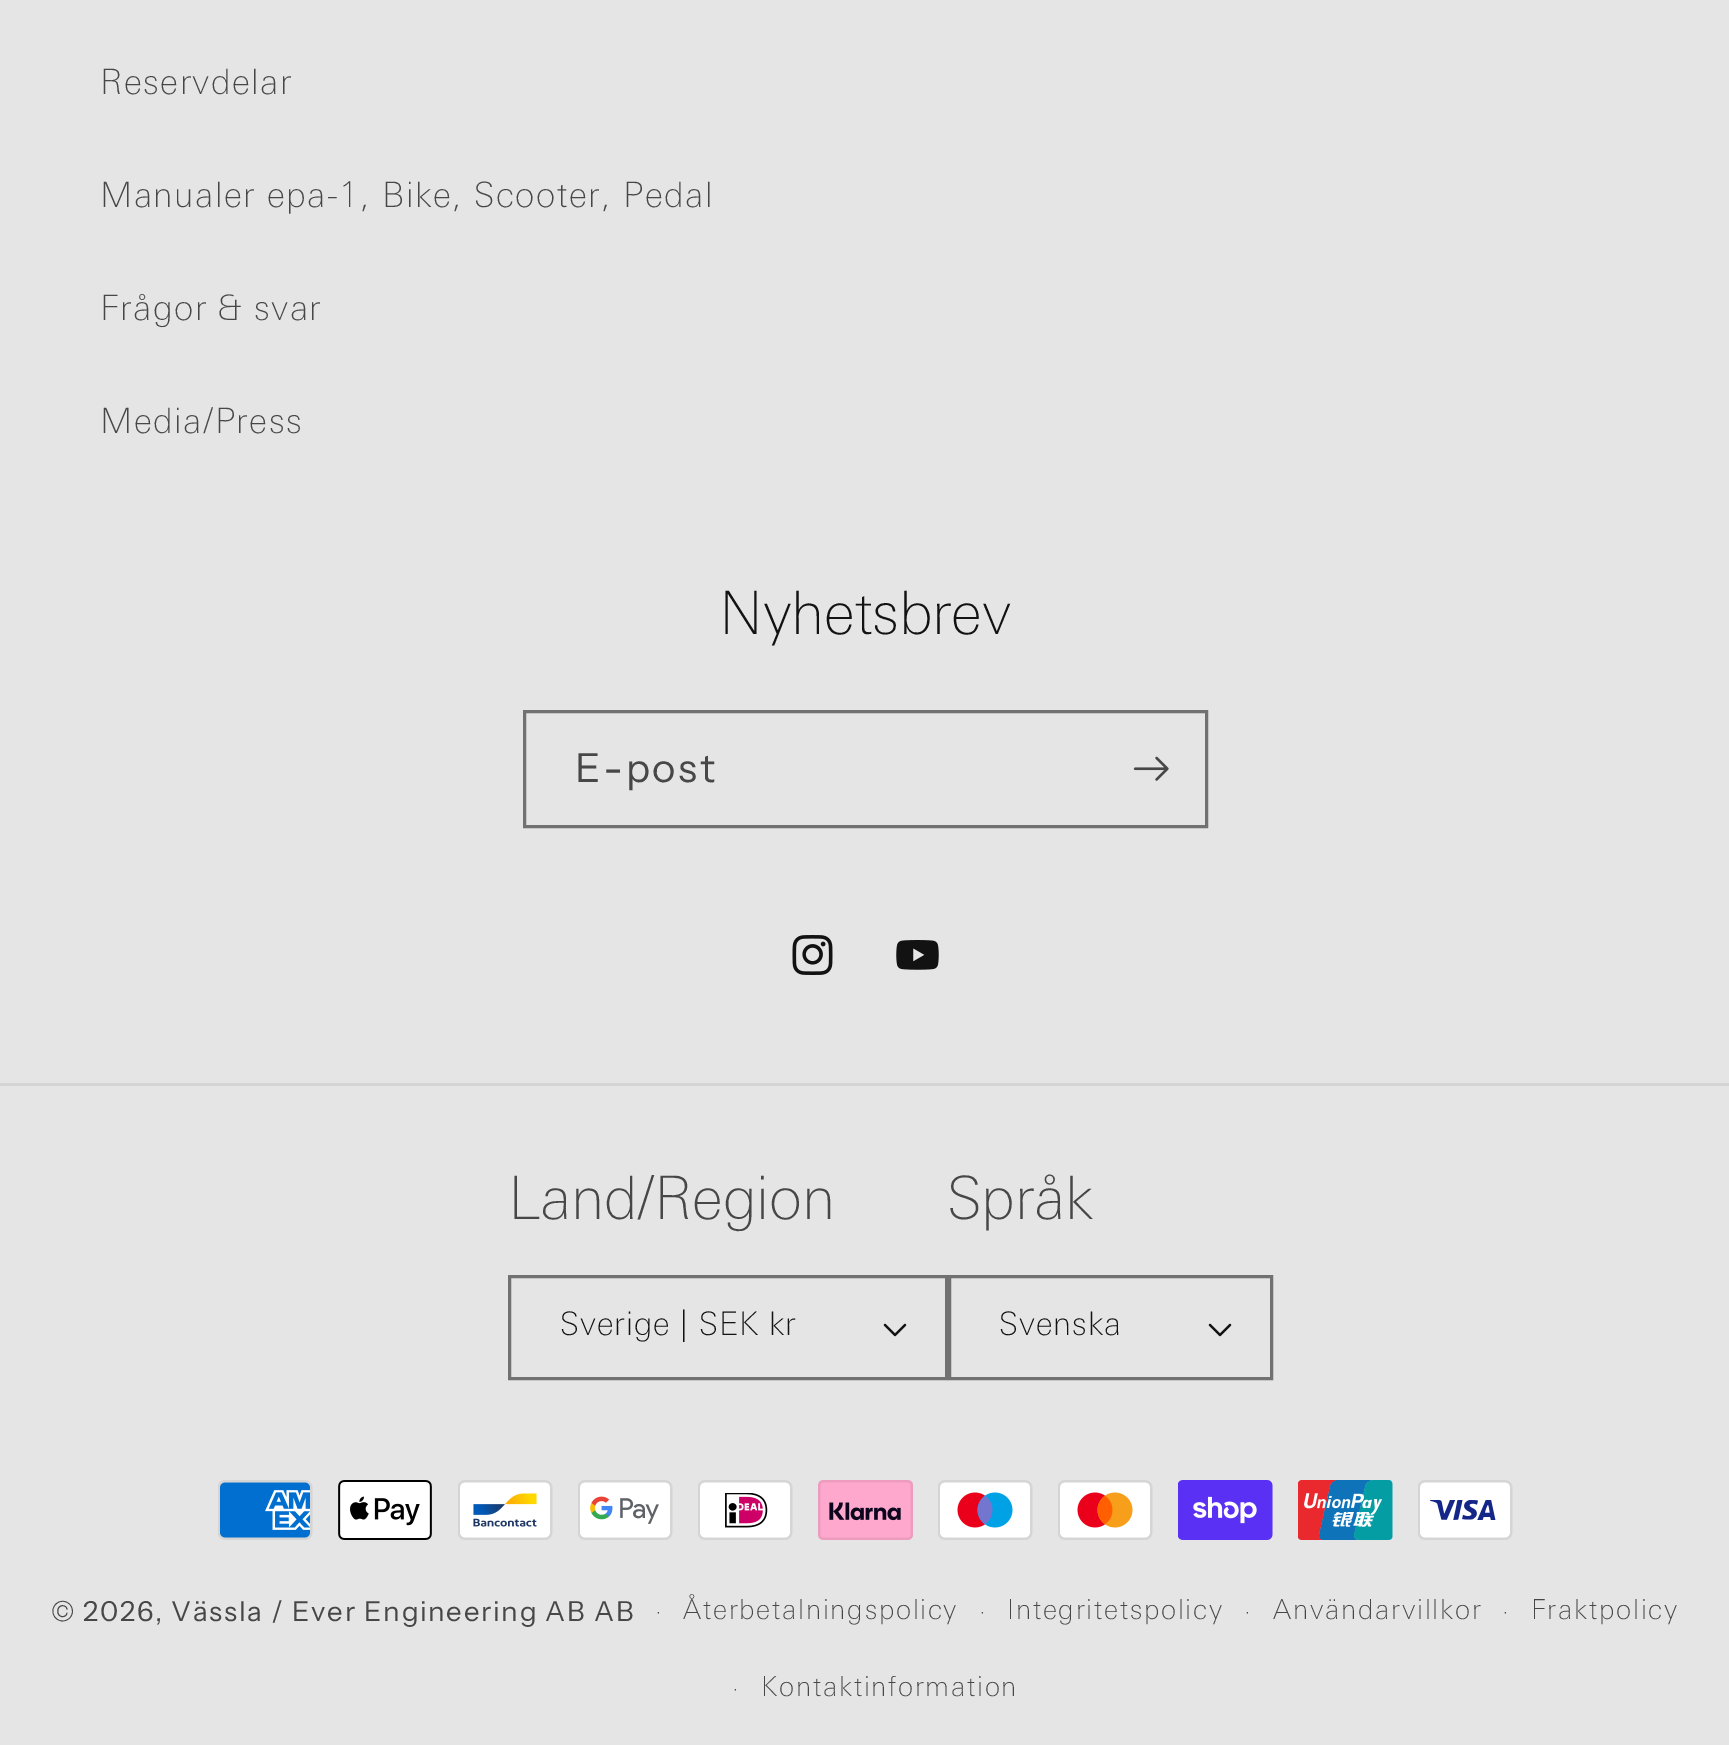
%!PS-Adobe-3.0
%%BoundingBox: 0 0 1729 1745
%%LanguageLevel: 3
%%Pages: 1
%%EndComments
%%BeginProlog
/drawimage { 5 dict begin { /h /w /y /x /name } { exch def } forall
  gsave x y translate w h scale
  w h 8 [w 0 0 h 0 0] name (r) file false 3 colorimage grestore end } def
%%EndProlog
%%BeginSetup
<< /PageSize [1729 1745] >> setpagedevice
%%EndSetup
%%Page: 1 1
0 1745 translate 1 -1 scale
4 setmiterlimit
0.898 setgray
0 0 1729 1745 rectfill
0.443 setgray
3 setlinewidth
524.5 711.5 682 115 rectstroke
(images/1.raw) 1133 756 36 25 drawimage
(images/2.raw) 792 935 41 40 drawimage
(images/3.raw) 896 940 43 30 drawimage
0.831 setgray
0 1083 1729 3 rectfill
(images/4.raw) 883 1323 24 14 drawimage
0.443 setgray
509.5 1276.5 437 102 rectstroke
(images/4.raw) 1208 1323 24 14 drawimage
949.5 1276.5 322 102 rectstroke
(images/5.raw) 218 1480 95 60 drawimage
(images/6.raw) 338 1480 94 60 drawimage
(images/7.raw) 458 1480 95 60 drawimage
(images/8.raw) 578 1480 95 60 drawimage
(images/9.raw) 698 1480 95 60 drawimage
(images/10.raw) 818 1480 95 60 drawimage
(images/11.raw) 938 1480 95 60 drawimage
(images/12.raw) 1058 1480 95 60 drawimage
(images/13.raw) 1178 1480 95 60 drawimage
(images/14.raw) 1298 1480 95 60 drawimage
(images/15.raw) 1418 1480 95 60 drawimage
/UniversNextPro-Thin [35 0 0 -35 0 0] selectfont
0.278 setgray
100 94 moveto 1.5 0 (Reservdelar) ashow
100 207 moveto 1.5 0 (Manualer epa-1, Bike, Scooter, Pedal) ashow
100 320 moveto 1.5 0 (Frågor & svar) ashow
100 433 moveto 1.5 0 (Media/Press) ashow
/UniversNextPro-Thin [60 0 0 -60 0 0] selectfont
0.071 setgray
719 634 moveto -0.25 0 (Nyhetsbrev) ashow
/InstrumentSans-Regular [40 0 0 -40 0 0] selectfont
0.278 setgray
575 782 moveto 2.5 0 (E-post) ashow
/UniversNextPro-Thin [60 0 0 -60 0 0] selectfont
508 1219 moveto -0.25 0 (Land/Region) ashow
/UniversNextPro-Thin [32.5 0 0 -32.5 0 0] selectfont
0.071 setgray
560 1335 moveto 1 0 (Sverige | SEK kr) ashow
/UniversNextPro-Thin [60 0 0 -60 0 0] selectfont
0.278 setgray
947 1219 moveto -0.25 0 (Språk) ashow
/UniversNextPro-Thin [32.5 0 0 -32.5 0 0] selectfont
0.071 setgray
999 1335 moveto 1 0 (Svenska) ashow
/InstrumentSans-Regular [27.5 0 0 -27.5 0 0] selectfont
0.278 setgray
51 1621 moveto 1.75 0 (© 2026, Vässla / Ever Engineering AB) ashow
594 1621 moveto 1.75 0 (AB) ashow
/UniversNextPro-Thin [25 0 0 -25 0 0] selectfont
655 1621 moveto 1.75 0 (·) ashow
/UniversNextPro-Thin [27.5 0 0 -27.5 0 0] selectfont
683 1619 moveto 1.75 0 (Återbetalningspolicy) ashow
/UniversNextPro-Thin [25 0 0 -25 0 0] selectfont
979 1621 moveto 1.75 0 (·) ashow
/UniversNextPro-Thin [27.5 0 0 -27.5 0 0] selectfont
1007 1619 moveto 1.75 0 (Integritetspolicy) ashow
/UniversNextPro-Thin [25 0 0 -25 0 0] selectfont
1244 1621 moveto 1.75 0 (·) ashow
/UniversNextPro-Thin [27.5 0 0 -27.5 0 0] selectfont
1273 1619 moveto 1.75 0 (Användarvillkor) ashow
/UniversNextPro-Thin [25 0 0 -25 0 0] selectfont
1502 1621 moveto 1.75 0 (·) ashow
/UniversNextPro-Thin [27.5 0 0 -27.5 0 0] selectfont
1531 1619 moveto 1.75 0 (Fraktpolicy) ashow
/UniversNextPro-Thin [25 0 0 -25 0 0] selectfont
732 1698 moveto 1.75 0 (·) ashow
/UniversNextPro-Thin [27.5 0 0 -27.5 0 0] selectfont
761 1696 moveto 1.75 0 (Kontaktinformation) ashow
showpage
%%EOF
